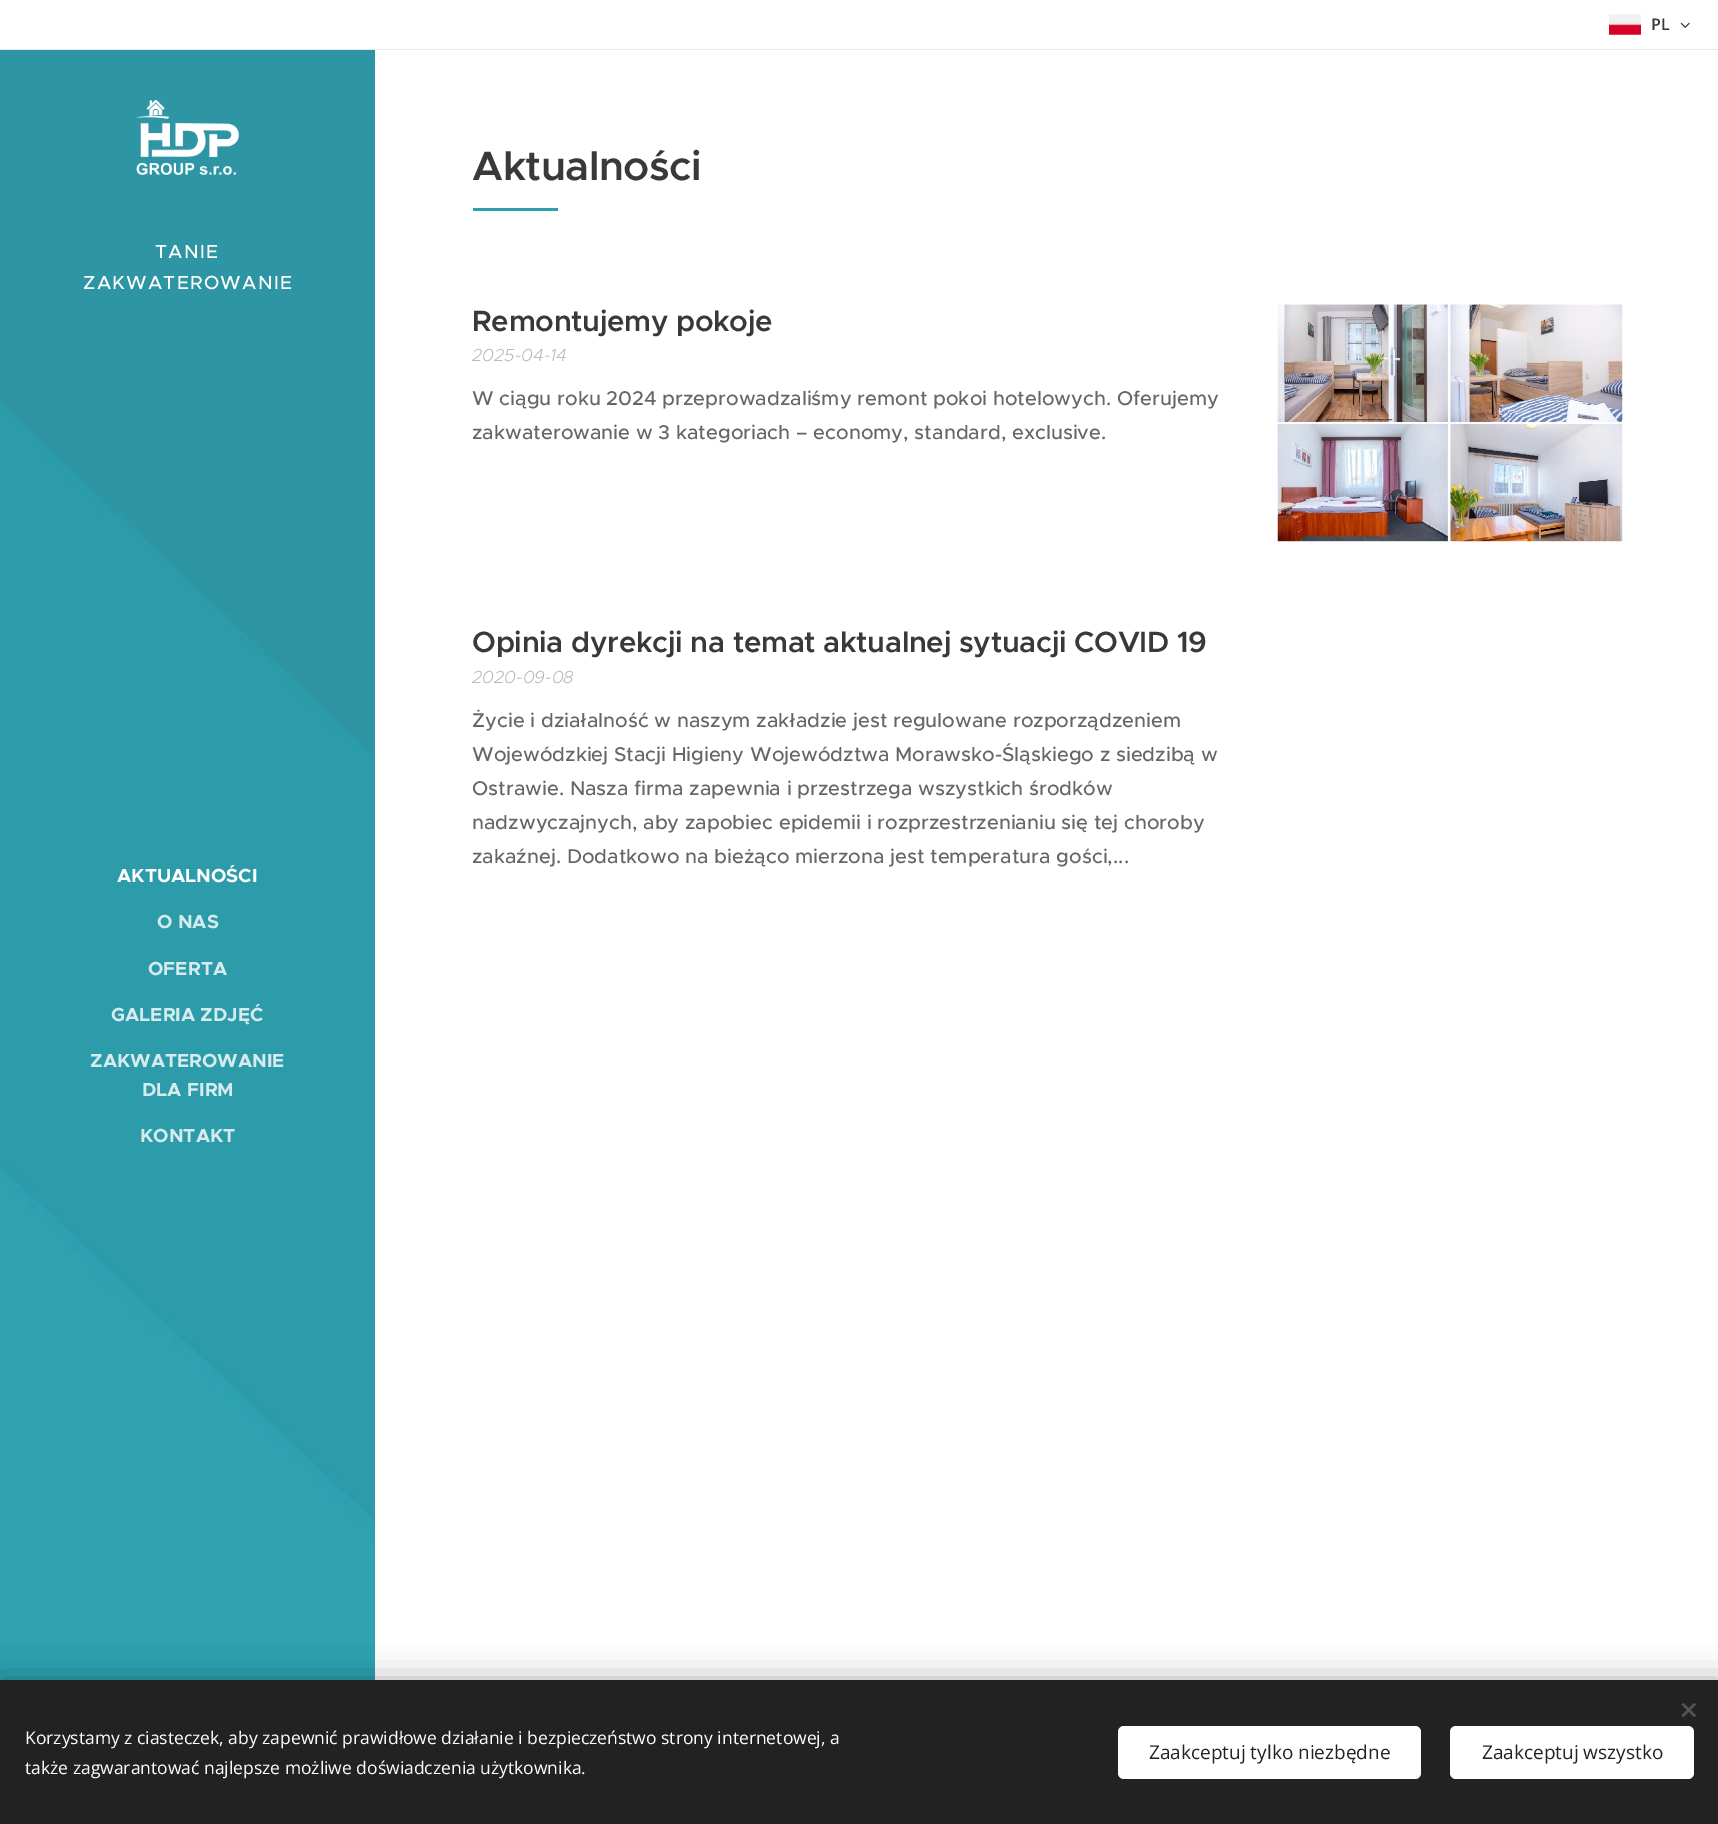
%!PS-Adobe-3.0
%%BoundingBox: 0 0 1718 1824
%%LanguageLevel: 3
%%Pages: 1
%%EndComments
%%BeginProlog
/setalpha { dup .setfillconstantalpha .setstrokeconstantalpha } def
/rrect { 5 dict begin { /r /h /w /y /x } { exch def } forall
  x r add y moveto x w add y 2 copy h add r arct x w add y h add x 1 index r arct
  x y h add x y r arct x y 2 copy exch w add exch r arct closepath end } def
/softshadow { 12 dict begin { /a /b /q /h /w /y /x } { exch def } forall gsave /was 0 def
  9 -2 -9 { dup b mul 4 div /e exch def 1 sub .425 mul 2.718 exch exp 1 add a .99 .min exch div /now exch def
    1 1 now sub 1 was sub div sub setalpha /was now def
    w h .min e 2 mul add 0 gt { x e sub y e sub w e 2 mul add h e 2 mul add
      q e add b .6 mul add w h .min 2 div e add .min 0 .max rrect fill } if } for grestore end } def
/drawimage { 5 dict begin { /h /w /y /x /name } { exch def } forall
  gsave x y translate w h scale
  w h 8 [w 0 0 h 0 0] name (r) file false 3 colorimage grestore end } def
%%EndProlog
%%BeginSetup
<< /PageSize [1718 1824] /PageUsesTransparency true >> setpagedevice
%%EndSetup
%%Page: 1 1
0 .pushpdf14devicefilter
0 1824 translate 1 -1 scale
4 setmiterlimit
1 setgray
0 0 1718 1824 rectfill
(images/1.raw) 1609 14 32 21 drawimage
(images/2.raw) 1680 22 10 6 drawimage
0.91 setgray
0 49 1718 1 rectfill
(images/3.raw) 0 50 375 1630 drawimage
(images/4.raw) 136 100 103 75 drawimage
0.18 0.631 0.694 setrgbcolor
473 208 85 3 rectfill
(images/5.raw) 1277 303 346 240 drawimage
0 setgray
0 1680 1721 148 0 15.5 0.33 softshadow
0.133 setgray
0 1680 1718 144 rectfill
0.333 setgray
newpath 1681.5 1715.5 moveto 1694 1703 lineto 1696 1704.5 lineto 1683.5 1717 lineto closepath fill
newpath 1683.5 1703 moveto 1696 1715.5 lineto 1694 1717 lineto 1681.5 1704.5 lineto closepath fill
1 setgray
1118 1726 303 53 6 rrect fill
1450 1726 244 53 6 rrect fill
/OpenSans-SemiBold [16 0 0 -16 0 0] selectfont
0.224 setgray
1651 30 moveto (PL) show
/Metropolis-Medium [19 0 0 -19 0 0] selectfont
1 setgray
155 258 moveto 1.25 0 (TANIE) ashow
83 289 moveto 1.25 0 (ZAKWATEROWANIE) ashow
/Metropolis-Bold [19 0 0 -19 0 0] selectfont
117 882 moveto (AKTUALNOŚCI) show
0.835 0.922 0.933 setrgbcolor
157 928 moveto (O NAS) show
148 975 moveto (OFERTA) show
111 1021 moveto (GALERIA ZDJĘĆ) show
90 1067 moveto (ZAKWATEROWANIE) show
142 1096 moveto (DLA FIRM) show
140 1142 moveto (KONTAKT) show
/Metropolis-SemiBold [41.25 0 0 -41.25 0 0] selectfont
0.224 setgray
472 180 moveto -0.5 0 (Aktualności) ashow
/Metropolis-SemiBold [29.4 0 0 -29.4 0 0] selectfont
472 331 moveto -0.3 0 (Remontujemy pokoje) ashow
/Metropolis-LightItalic [17.5 0 0 -17.5 0 0] selectfont
0.729 setgray
472 361 moveto (2025-04-14) show
/Metropolis-Medium [20 0 0 -20 0 0] selectfont
0.4 setgray
472 405 moveto (W ciągu roku 2024 przeprowadzaliśmy remont pokoi hotelowych. Oferujemy) show
472 439 moveto (zakwaterowanie w 3 kategoriach – economy, standard, exclusive.) show
/Metropolis-SemiBold [29.4 0 0 -29.4 0 0] selectfont
0.224 setgray
472 652 moveto -0.3 0 (Opinia dyrekcji na temat aktualnej sytuacji COVID 19) ashow
/Metropolis-LightItalic [17.5 0 0 -17.5 0 0] selectfont
0.729 setgray
472 683 moveto (2020-09-08) show
/Metropolis-Medium [20 0 0 -20 0 0] selectfont
0.4 setgray
472 727 moveto (Życie i działalność w naszym zakładzie jest regulowane rozporządzeniem) show
472 761 moveto (Wojewódzkiej Stacji Higieny Województwa Morawsko-Śląskiego z siedzibą w) show
472 795 moveto (Ostrawie. Nasza firma zapewnia i przestrzega wszystkich środków) show
472 829 moveto (nadzwyczajnych, aby zapobiec epidemii i rozprzestrzenianiu się tej choroby) show
472 863 moveto (zakaźnej. Dodatkowo na bieżąco mierzona jest temperatura gości,...) show
/OpenSans-Regular [17.5 0 0 -17.5 0 0] selectfont
1 setgray
25 1744 moveto (Korzystamy z ciasteczek, aby zapewnić prawidłowe działanie i bezpieczeństwo strony internetowej, a) show
25 1774 moveto (także zagwarantować najlepsze możliwe doświadczenia użytkownika.) show
/OpenSans-Regular [19 0 0 -19 0 0] selectfont
0.133 setgray
1149 1759 moveto (Zaakceptuj tylko niezbędne) show
1482 1759 moveto (Zaakceptuj wszystko) show
.poppdf14devicefilter showpage
%%EOF
